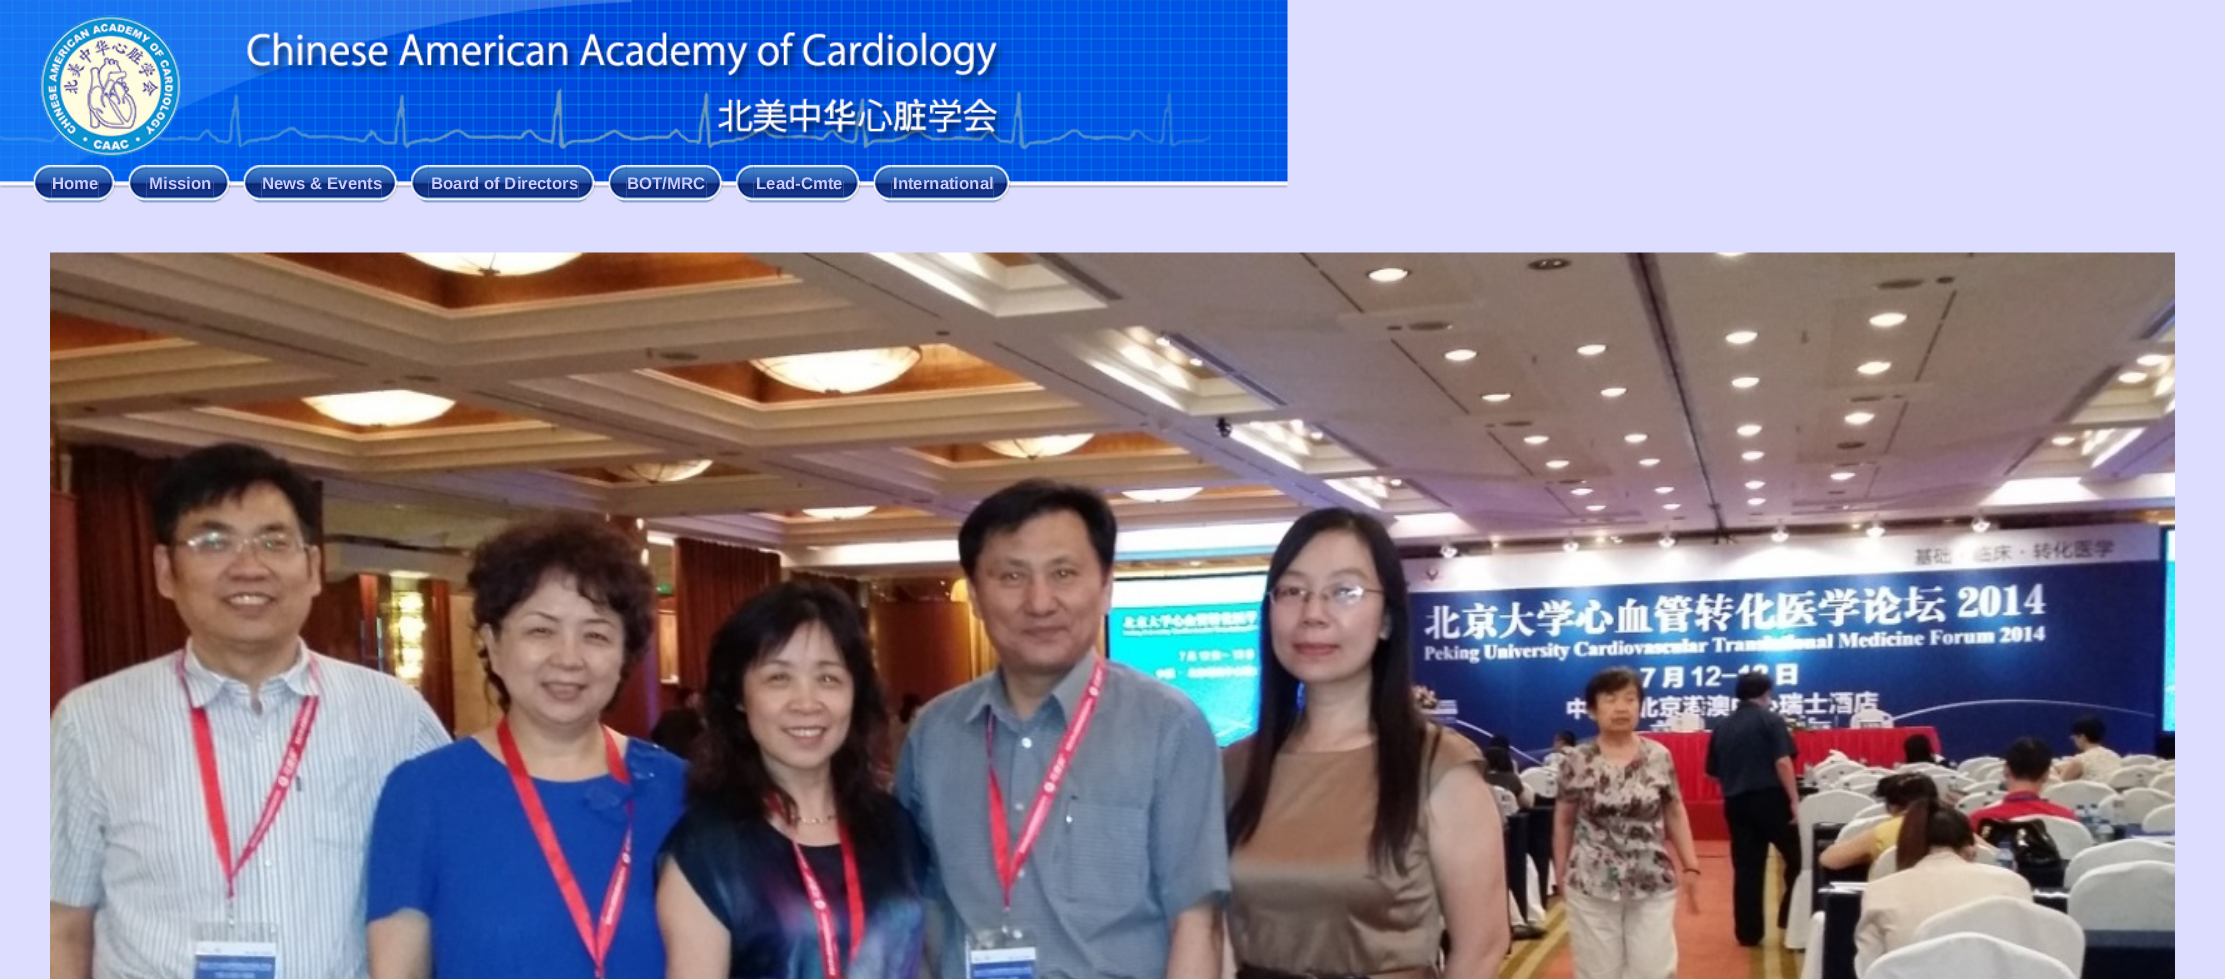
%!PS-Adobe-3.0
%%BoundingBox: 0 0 2225 979
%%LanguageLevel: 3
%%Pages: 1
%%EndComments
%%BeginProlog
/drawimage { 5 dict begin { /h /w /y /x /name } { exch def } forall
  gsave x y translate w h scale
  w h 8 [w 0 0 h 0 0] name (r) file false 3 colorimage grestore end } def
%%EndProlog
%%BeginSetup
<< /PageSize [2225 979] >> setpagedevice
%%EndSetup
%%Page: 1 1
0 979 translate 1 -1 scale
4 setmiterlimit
0.867 0.867 1 setrgbcolor
0 0 2225 979 rectfill
(images/1.raw) 0 0 1288 188 drawimage
(images/2.raw) 33 165 19 38 drawimage
(images/3.raw) 51 165 48 38 drawimage
(images/4.raw) 98 165 19 38 drawimage
(images/5.raw) 128 165 19 38 drawimage
(images/6.raw) 146 165 68 38 drawimage
(images/7.raw) 213 165 19 38 drawimage
(images/8.raw) 243 165 19 38 drawimage
(images/9.raw) 261 165 121 38 drawimage
(images/10.raw) 381 165 18 38 drawimage
(images/11.raw) 411 165 18 38 drawimage
(images/12.raw) 428 165 151 38 drawimage
(images/13.raw) 578 165 19 38 drawimage
(images/14.raw) 608 165 19 38 drawimage
(images/15.raw) 626 165 81 38 drawimage
(images/16.raw) 706 165 18 38 drawimage
(images/17.raw) 736 165 18 38 drawimage
(images/18.raw) 753 165 91 38 drawimage
(images/19.raw) 843 165 19 38 drawimage
(images/20.raw) 873 165 19 38 drawimage
(images/21.raw) 891 165 103 38 drawimage
(images/22.raw) 993 165 19 38 drawimage
(images/23.raw) 50 252 2125 727 drawimage
/LiberationSans-Bold [16.75 0 0 -16.75 0 0] selectfont
0.8 0.8 1 setrgbcolor
52 189 moveto (Home) show
149 189 moveto (Mission) show
262 189 moveto (News & Events) show
431 189 moveto (Board of Directors) show
627 189 moveto (BOT/MRC) show
756 189 moveto (Lead-Cmte) show
893 189 moveto (International) show
showpage
%%EOF
